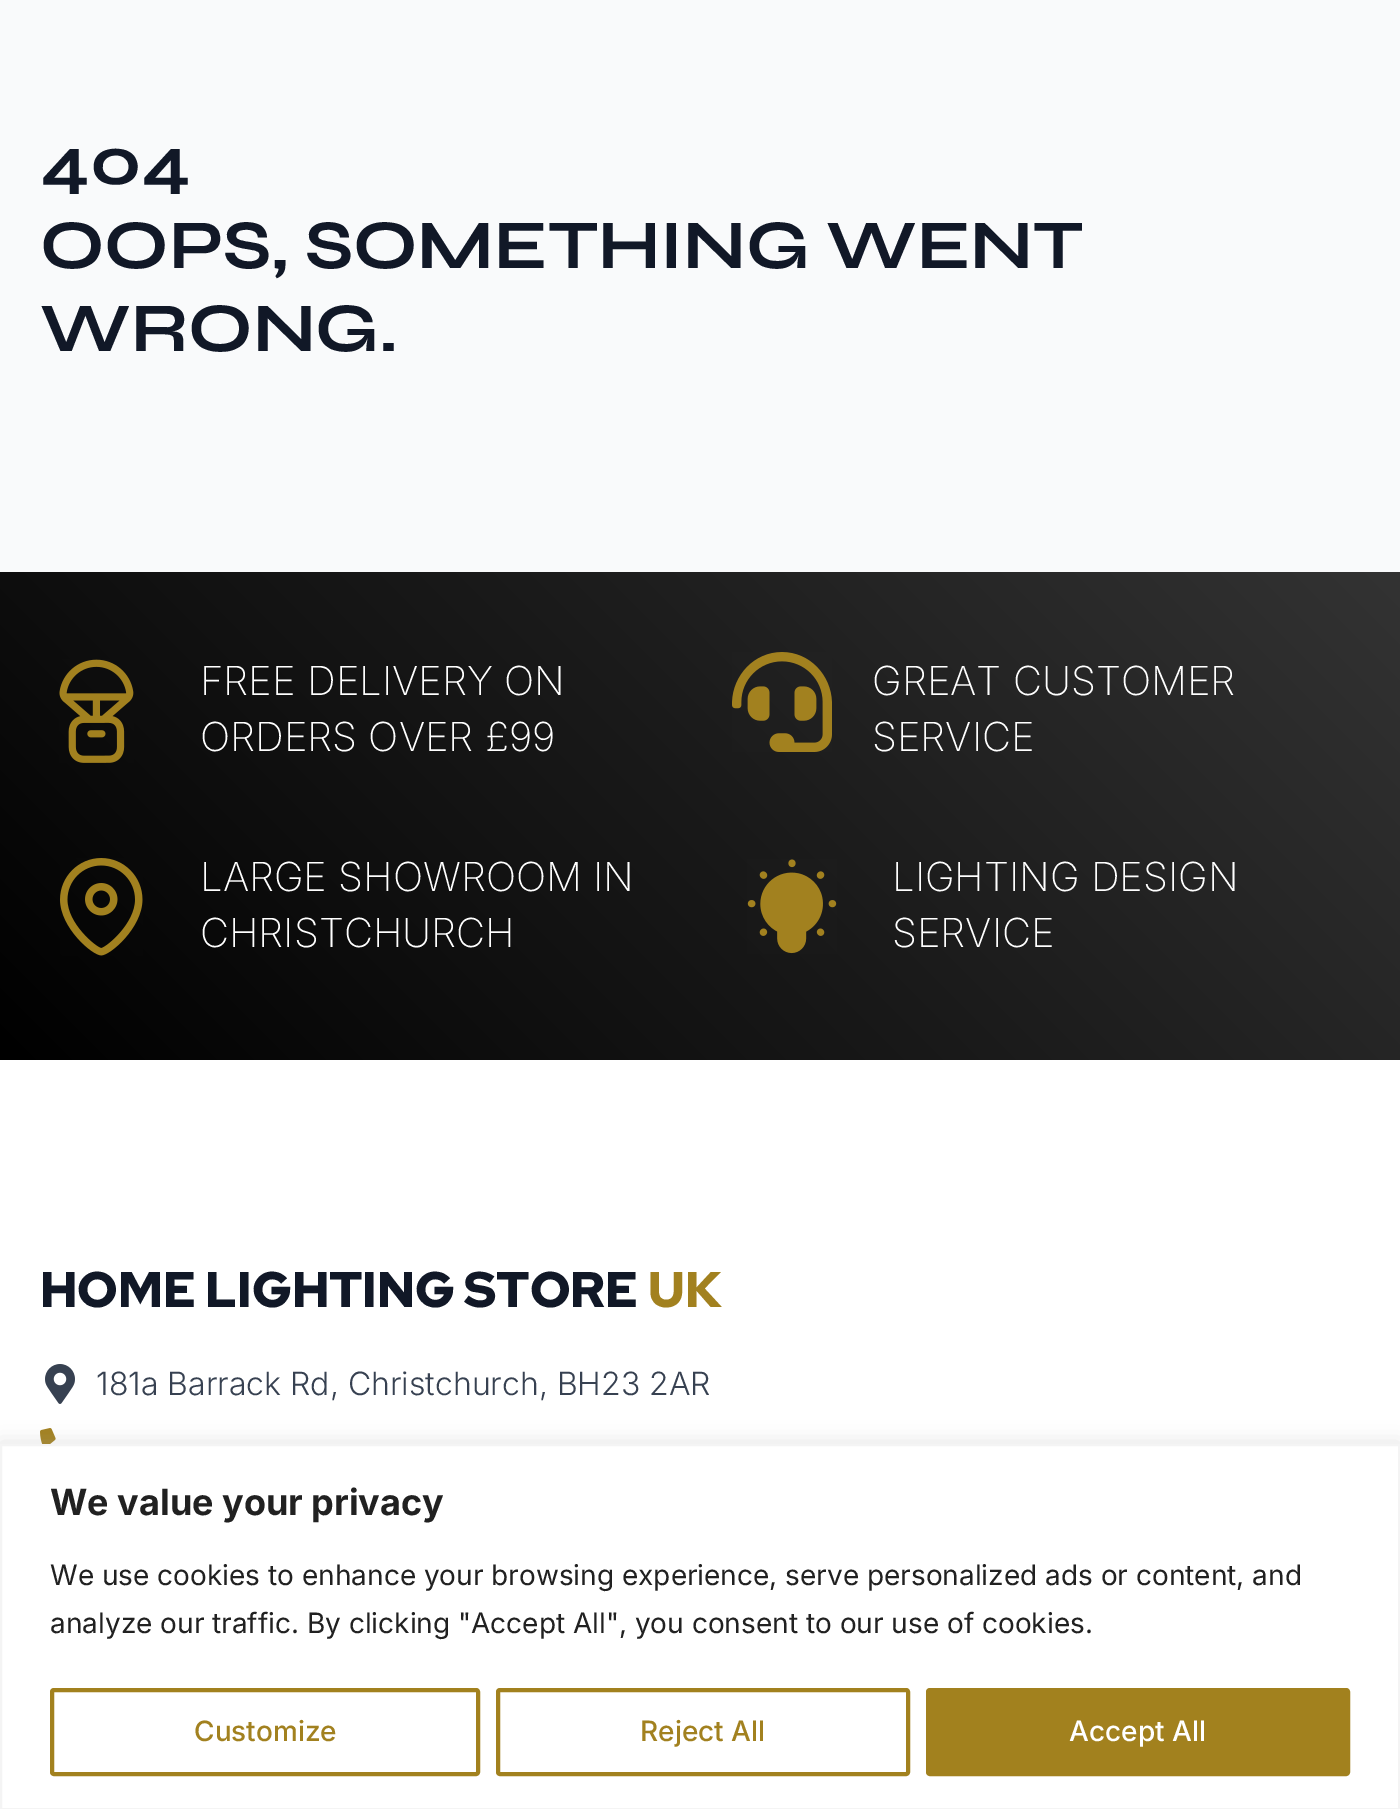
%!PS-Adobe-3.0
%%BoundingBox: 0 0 1400 1809
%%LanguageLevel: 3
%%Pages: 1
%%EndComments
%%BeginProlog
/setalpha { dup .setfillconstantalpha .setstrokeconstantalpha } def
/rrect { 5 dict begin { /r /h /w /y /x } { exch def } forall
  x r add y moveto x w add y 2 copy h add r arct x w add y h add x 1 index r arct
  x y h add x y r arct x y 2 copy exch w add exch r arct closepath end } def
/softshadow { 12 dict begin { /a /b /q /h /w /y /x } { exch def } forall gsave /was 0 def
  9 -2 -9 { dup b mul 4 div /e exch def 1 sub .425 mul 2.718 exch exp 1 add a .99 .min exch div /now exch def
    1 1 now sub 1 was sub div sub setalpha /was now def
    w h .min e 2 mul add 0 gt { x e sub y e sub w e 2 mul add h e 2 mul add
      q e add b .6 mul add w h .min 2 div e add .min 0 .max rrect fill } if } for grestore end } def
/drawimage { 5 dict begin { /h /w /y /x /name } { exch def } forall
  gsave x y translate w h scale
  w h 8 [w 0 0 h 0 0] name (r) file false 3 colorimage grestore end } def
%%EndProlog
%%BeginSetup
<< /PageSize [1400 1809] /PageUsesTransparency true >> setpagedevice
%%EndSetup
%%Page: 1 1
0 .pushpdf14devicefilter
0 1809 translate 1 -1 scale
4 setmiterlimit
0.976 0.98 0.984 setrgbcolor
0 0 1400 1809 rectfill
gsave newpath 0 572 moveto 1400 572 lineto 1400 1060 lineto 0 1060 lineto closepath clip newpath
<< /ShadingType 2 /ColorSpace /DeviceRGB /Coords [228 1288 1172 344] /Extend [true true] /Function << /FunctionType 2 /Domain [0 1] /C0 [0 0 0] /C1 [0.2 0.2 0.2] /N 1 >> >> shfill grestore
(images/1.raw) 59 659 75 104 drawimage
(images/2.raw) 732 652 100 100 drawimage
(images/3.raw) 60 858 83 98 drawimage
(images/4.raw) 747 859 90 95 drawimage
1 setgray
0 1060 1400 384 rectfill
(images/5.raw) 45 1364 30 40 drawimage
(images/6.raw) 40 1428 16 16 drawimage
0.675 0.671 0.671 setrgbcolor
0 1442 1400 366 0 10 0.3 softshadow
1 setgray
newpath 1 1445 moveto 1399 1445 lineto 1399 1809 lineto 1 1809 lineto closepath gsave fill grestore
0.957 setgray
2 setlinewidth
stroke
0.635 0.506 0.118 setrgbcolor
4 setlinewidth
52 1690 426 84 2 rrect stroke
498 1690 410 84 2 rrect stroke
928 1690 420 84 2 rrect gsave fill grestore
stroke
/Syne-Bold [69.7 0 0 -69.7 0 0] selectfont
0.067 0.094 0.153 setrgbcolor
40 184 moveto (404) show
40 268 moveto (OOPS, SOMETHING WENT) show
40 351 moveto (WRONG.) show
/Inter-ExtraLight [40 0 0 -40 0 0] selectfont
1 setgray
200 695 moveto (FREE DELIVERY ON) show
200 751 moveto (ORDERS OVER £99) show
872 695 moveto (GREAT CUSTOMER) show
872 751 moveto (SERVICE) show
200 891 moveto (LARGE SHOWROOM IN) show
200 947 moveto (CHRISTCHURCH) show
892 891 moveto (LIGHTING DESIGN) show
892 947 moveto (SERVICE) show
/RedHatDisplay-Black [50 0 0 -50 0 0] selectfont
0.067 0.094 0.153 setrgbcolor
40 1307 moveto (HOME LIGHTING STORE) show
0.635 0.506 0.122 setrgbcolor
648 1307 moveto (UK) show
/Inter-Light [32 0 0 -32 0 0] selectfont
0.216 0.255 0.318 setrgbcolor
96 1395 moveto (181a Barrack Rd, Christchurch, BH23 2AR) show
/Inter-Bold [36 0 0 -36 0 0] selectfont
0.129 setgray
50 1515 moveto (We value your privacy) show
/Inter-Regular [28 0 0 -28 0 0] selectfont
50 1585 moveto (We use cookies to enhance your browsing experience, serve personalized ads or content, and) show
50 1633 moveto (analyze our traffic. By clicking "Accept All", you consent to our use of cookies.) show
/Inter-Medium [28 0 0 -28 0 0] selectfont
0.635 0.506 0.122 setrgbcolor
194 1741 moveto (Customize) show
640 1741 moveto (Reject All) show
1 setgray
1069 1741 moveto (Accept All) show
.poppdf14devicefilter showpage
%%EOF
